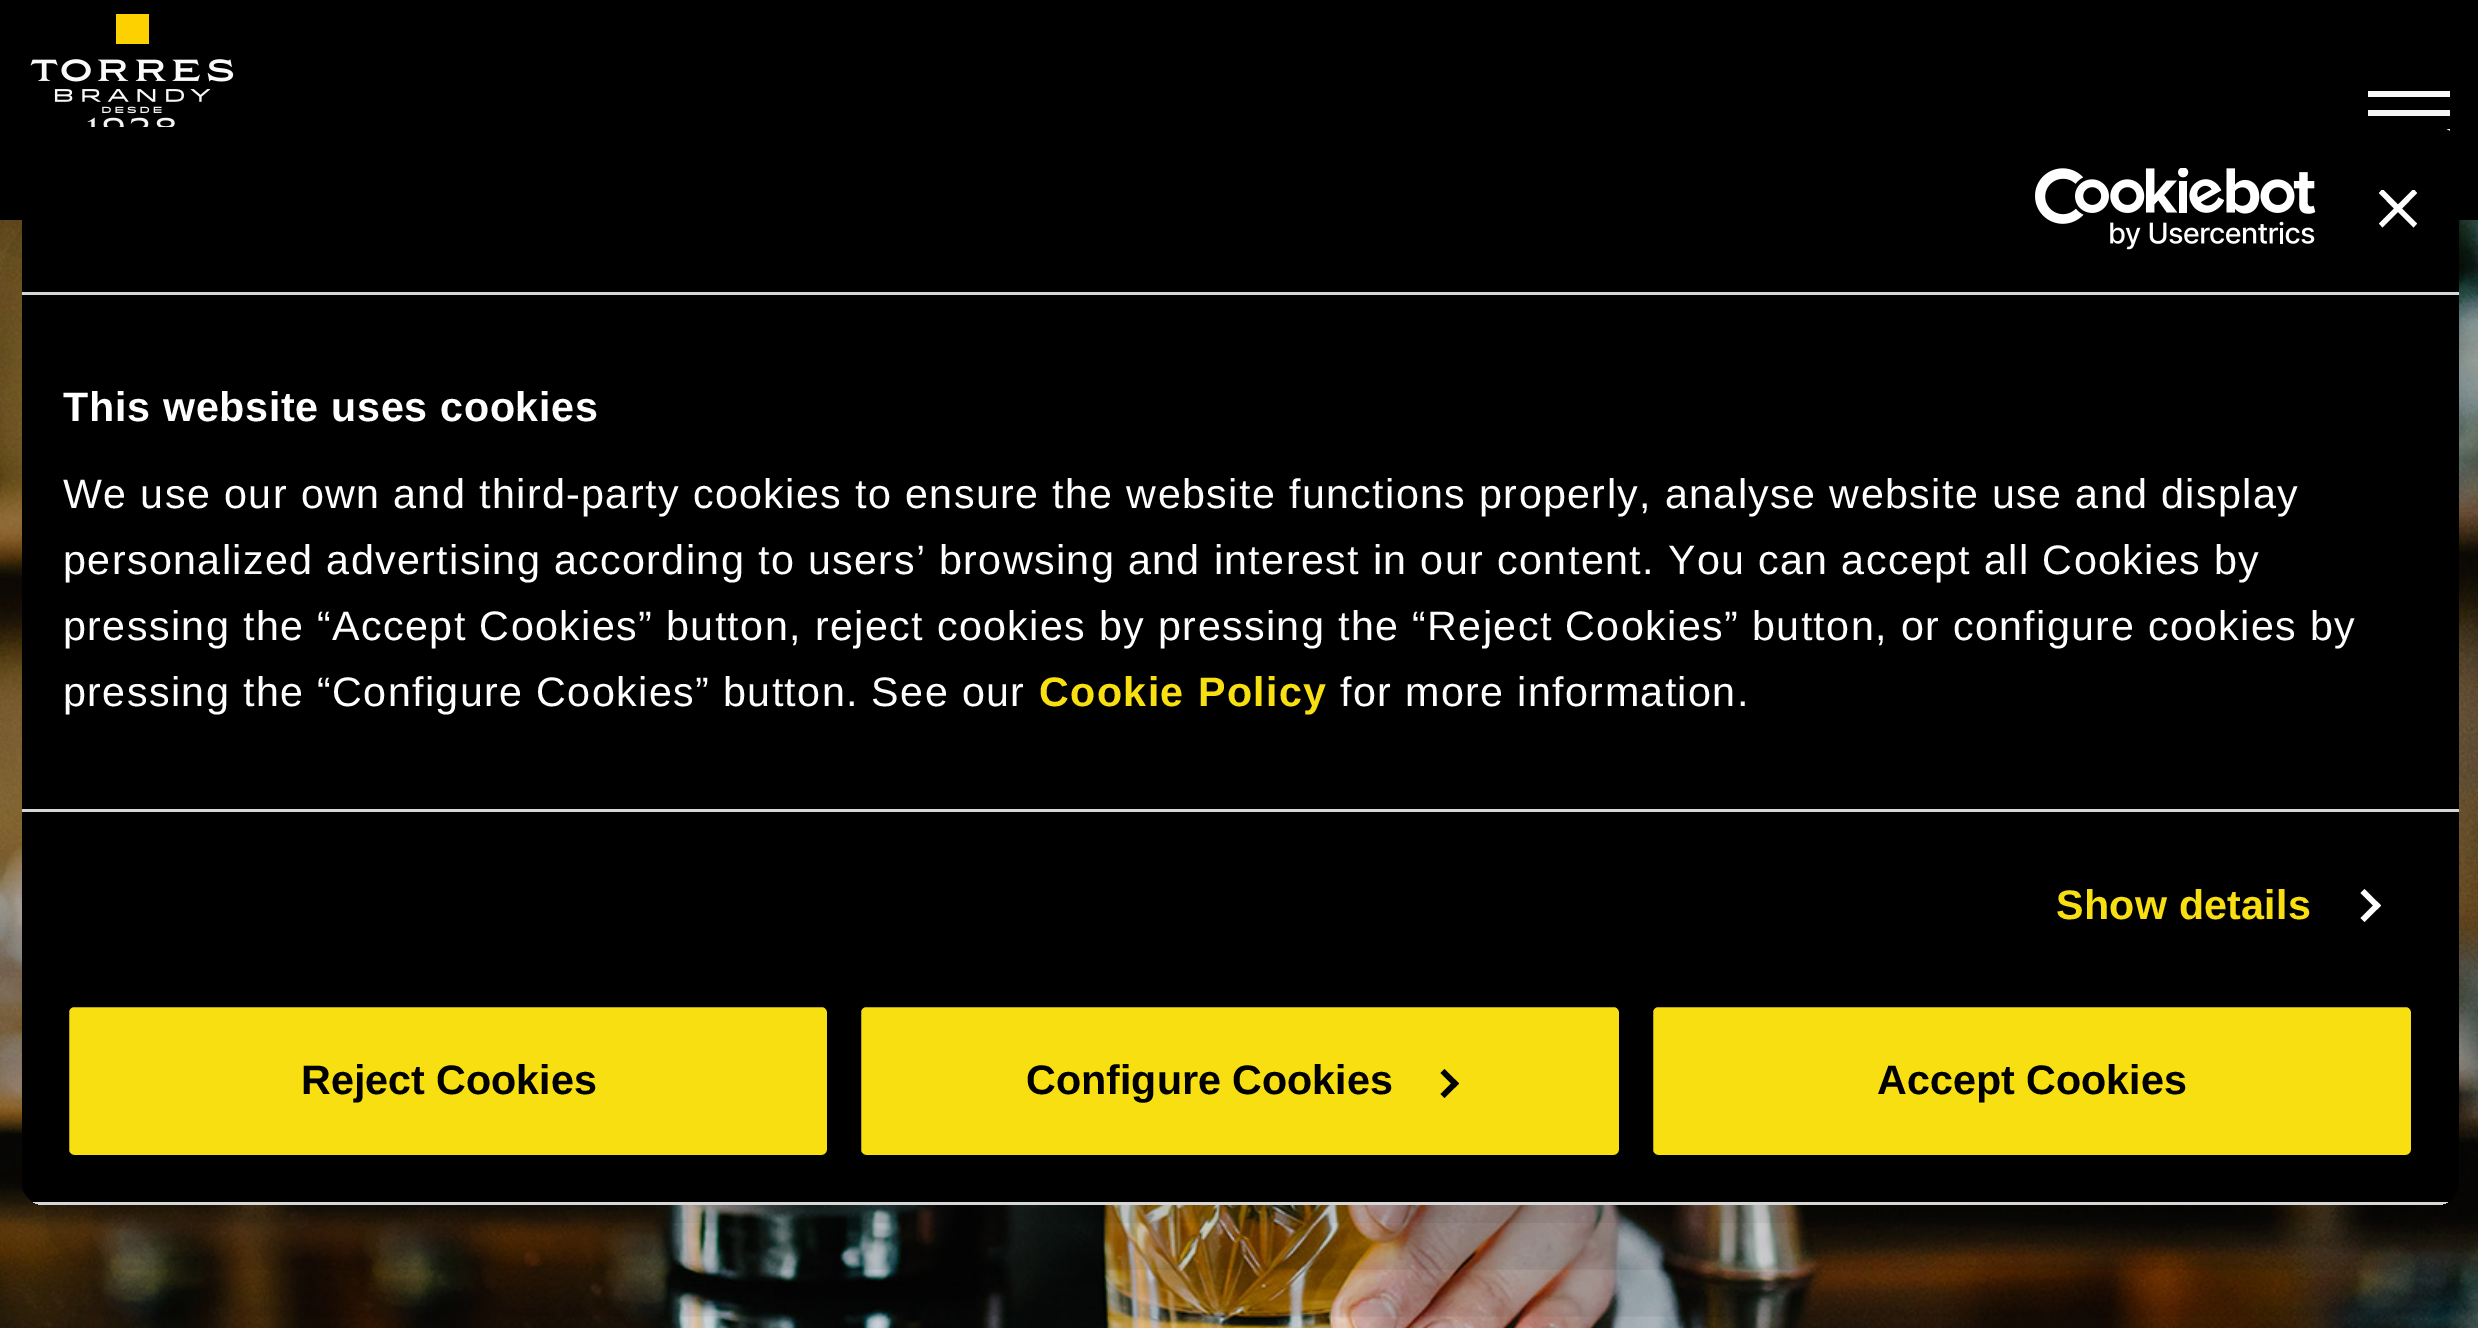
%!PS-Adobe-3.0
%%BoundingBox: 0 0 2478 1328
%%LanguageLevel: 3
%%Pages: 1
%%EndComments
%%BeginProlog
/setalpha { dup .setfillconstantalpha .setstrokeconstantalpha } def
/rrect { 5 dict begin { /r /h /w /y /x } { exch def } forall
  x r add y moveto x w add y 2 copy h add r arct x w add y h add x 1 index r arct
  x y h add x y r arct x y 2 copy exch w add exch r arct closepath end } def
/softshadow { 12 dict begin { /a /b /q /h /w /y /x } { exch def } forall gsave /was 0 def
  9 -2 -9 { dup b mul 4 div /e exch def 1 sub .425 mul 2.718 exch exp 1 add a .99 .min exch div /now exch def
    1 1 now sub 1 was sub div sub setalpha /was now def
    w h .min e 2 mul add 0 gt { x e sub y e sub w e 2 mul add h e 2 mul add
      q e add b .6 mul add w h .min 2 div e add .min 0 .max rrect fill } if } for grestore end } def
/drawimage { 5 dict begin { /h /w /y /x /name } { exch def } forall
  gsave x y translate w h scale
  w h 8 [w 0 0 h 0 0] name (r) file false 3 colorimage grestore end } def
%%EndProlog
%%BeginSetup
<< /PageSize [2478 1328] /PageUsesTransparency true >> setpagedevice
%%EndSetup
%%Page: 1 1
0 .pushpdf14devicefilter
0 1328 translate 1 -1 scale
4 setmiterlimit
1 setgray
0 0 2478 1328 rectfill
(images/2.raw) 0 220 2478 1108 drawimage
0 setgray
0 28 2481 220 0 44 0.15 softshadow
0 0 2478 220 rectfill
(images/1.raw) 30 14 204 113 drawimage
1 setgray
2368 91 82 6 rectfill
2368 110 82 6 rectfill
2446 129 4 3 rectfill
0 setgray
22 215 2437 1078 22 93.5 0.3 softshadow
22 127 2437 1078 22 rrect fill
0.839 setgray
22 292 2437 3 rectfill
(images/3.raw) 2035 168 281 82 drawimage
gsave
2379 190 38 38 rectclip
1 setgray
newpath 2417 193 moveto 2413.5 189 lineto 2398 204.5 lineto 2382.5 189 lineto 2379 193 lineto 2394 208.5 lineto 2379 223.5 lineto 2382.5 227.5 lineto 2398 212 lineto 2413.5 227.5 lineto 2417 223.5 lineto 2402 208.5 lineto closepath fill
grestore
22 809 2437 3 rectfill
1 setgray
newpath 2364.5 889 moveto 2381 905.5 lineto 2377 909.5 lineto 2360.5 893 lineto closepath fill
newpath 2377 901.5 moveto 2381 905.5 lineto 2364.5 922 lineto 2360.5 918 lineto closepath fill
gsave
22 127 2437 1078 22 rrect clip newpath
0.839 setgray
33 1202 2415 3 rectfill
grestore
0.973 0.875 0.071 setrgbcolor
66 1004 764 154 8 rrect gsave fill grestore
0 setgray
6 setlinewidth
stroke
0.973 0.875 0.071 setrgbcolor
858 1004 764 154 8 rrect gsave fill grestore
0 setgray
stroke
newpath 1444.5 1069 moveto 1459 1083.5 lineto 1455 1087.5 lineto 1440.5 1073 lineto closepath fill
newpath 1455 1079.5 moveto 1459 1083.5 lineto 1444.5 1098 lineto 1440.5 1094 lineto closepath fill
0.973 0.875 0.071 setrgbcolor
1650 1004 764 154 8 rrect gsave fill grestore
0 setgray
stroke
/LiberationSans-Bold [41.25 0 0 -41.25 0 0] selectfont
1 setgray
63 421 moveto 0.7 0 (This website uses cookies) ashow
/LiberationSans-Regular [41.25 0 0 -41.25 0 0] selectfont
63 508 moveto 1.38 0 (We use our own and third-party cookies to ensure the website functions properly, analyse website use and display) ashow
63 574 moveto 1.38 0 (personalized advertising according to users’ browsing and interest in our content. You can accept all Cookies by) ashow
63 640 moveto 1.38 0 (pressing the “Accept Cookies” button, reject cookies by pressing the “Reject Cookies” button, or configure cookies by) ashow
63 706 moveto 1.38 0 (pressing the “Configure Cookies” button. See our) ashow
/LiberationSans-Bold [41.25 0 0 -41.25 0 0] selectfont
0.973 0.875 0.071 setrgbcolor
1039 706 moveto 1.38 0 (Cookie Policy) ashow
/LiberationSans-Regular [41.25 0 0 -41.25 0 0] selectfont
1 setgray
1340 706 moveto 1.38 0 (for more information.) ashow
/LiberationSans-Bold [41.25 0 0 -41.25 0 0] selectfont
0.973 0.875 0.071 setrgbcolor
2056 919 moveto 0.25 0 (Show details) ashow
0 setgray
301 1094 moveto (Reject Cookies) show
1026 1094 moveto (Configure Cookies) show
1877 1094 moveto (Accept Cookies) show
.poppdf14devicefilter showpage
%%EOF
